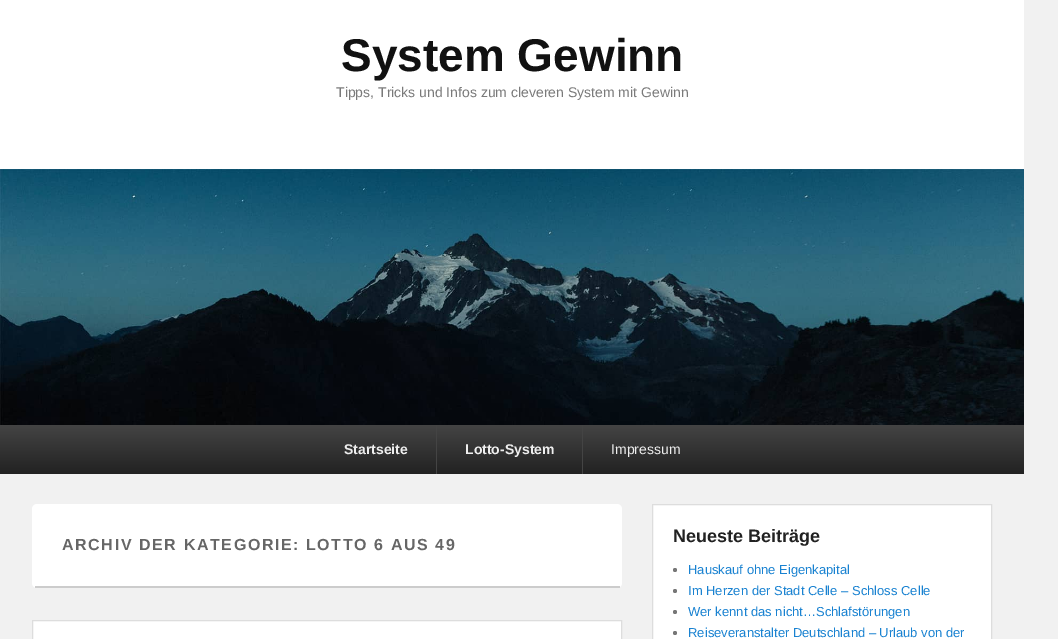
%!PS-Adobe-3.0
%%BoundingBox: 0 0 1058 639
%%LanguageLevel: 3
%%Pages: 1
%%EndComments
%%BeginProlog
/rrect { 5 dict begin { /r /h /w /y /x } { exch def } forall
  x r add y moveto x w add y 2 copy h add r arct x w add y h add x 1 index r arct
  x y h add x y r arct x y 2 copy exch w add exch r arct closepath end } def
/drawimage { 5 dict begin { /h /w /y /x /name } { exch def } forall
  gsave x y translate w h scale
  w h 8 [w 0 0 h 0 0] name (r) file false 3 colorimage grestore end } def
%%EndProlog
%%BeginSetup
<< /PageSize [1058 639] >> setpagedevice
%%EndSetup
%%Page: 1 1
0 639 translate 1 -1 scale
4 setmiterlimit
0.945 setgray
0 0 1058 639 rectfill
1 setgray
0 0 1024 169 rectfill
(images/1.raw) 0 169 1024 256 drawimage
gsave newpath 0 425 moveto 1024 425 lineto 1024 474 lineto 0 474 lineto closepath clip newpath
<< /ShadingType 2 /ColorSpace /DeviceRGB /Coords [512 425 512 474] /Extend [true true] /Function << /FunctionType 2 /Domain [0 1] /C0 [0.267 0.267 0.267] /C1 [0.133 0.133 0.133] /N 1 >> >> shfill grestore
0.267 setgray
436 425 1 49 rectfill
582 425 1 49 rectfill
1 setgray
32 504 590 84 5 rrect fill
0.8 setgray
35 586 585 2 rectfill
1 setgray
newpath 32.5 620.5 moveto 621.5 620.5 lineto 621.5 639.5 lineto 32.5 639.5 lineto closepath gsave fill grestore
0.867 setgray
stroke
1 setgray
newpath 652.5 504.5 moveto 991.5 504.5 lineto 991.5 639.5 lineto 652.5 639.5 lineto closepath gsave fill grestore
0.867 setgray
stroke
0.467 setgray
newpath 675 570 2 0 360 arc closepath fill
newpath 675 591 2 0 360 arc closepath fill
newpath 675 612 2 0 360 arc closepath fill
newpath 675 633 2 0 360 arc closepath fill
/LiberationSans-Bold [46 0 0 -46 0 0] selectfont
0.067 setgray
341 71 moveto (System Gewinn) show
/LiberationSans-Regular [14 0 0 -14 0 0] selectfont
0.478 setgray
336 97 moveto (Tipps, Tricks und Infos zum cleveren System mit Gewinn) show
/LiberationSans-Bold [14 0 0 -14 0 0] selectfont
0.933 setgray
344 454 moveto (Startseite) show
465 454 moveto (Lotto-System) show
/LiberationSans-Regular [14 0 0 -14 0 0] selectfont
611 454 moveto (Impressum) show
/LiberationSans-Bold [16 0 0 -16 0 0] selectfont
0.4 setgray
62 550 moveto 1.6 0 (ARCHIV DER KATEGORIE: LOTTO 6 AUS 49) ashow
/LiberationSans-Bold [18 0 0 -18 0 0] selectfont
0.133 setgray
673 542 moveto (Neueste Beiträge) show
/LiberationSans-Regular [13 0 0 -13 0 0] selectfont
0.098 0.51 0.82 setrgbcolor
688 574 moveto (Hauskauf ohne Eigenkapital) show
688 595 moveto (Im Herzen der Stadt Celle – Schloss Celle) show
688 616 moveto (Wer kennt das nicht…Schlafstörungen) show
688 637 moveto (Reiseveranstalter Deutschland – Urlaub von der) show
showpage
%%EOF
